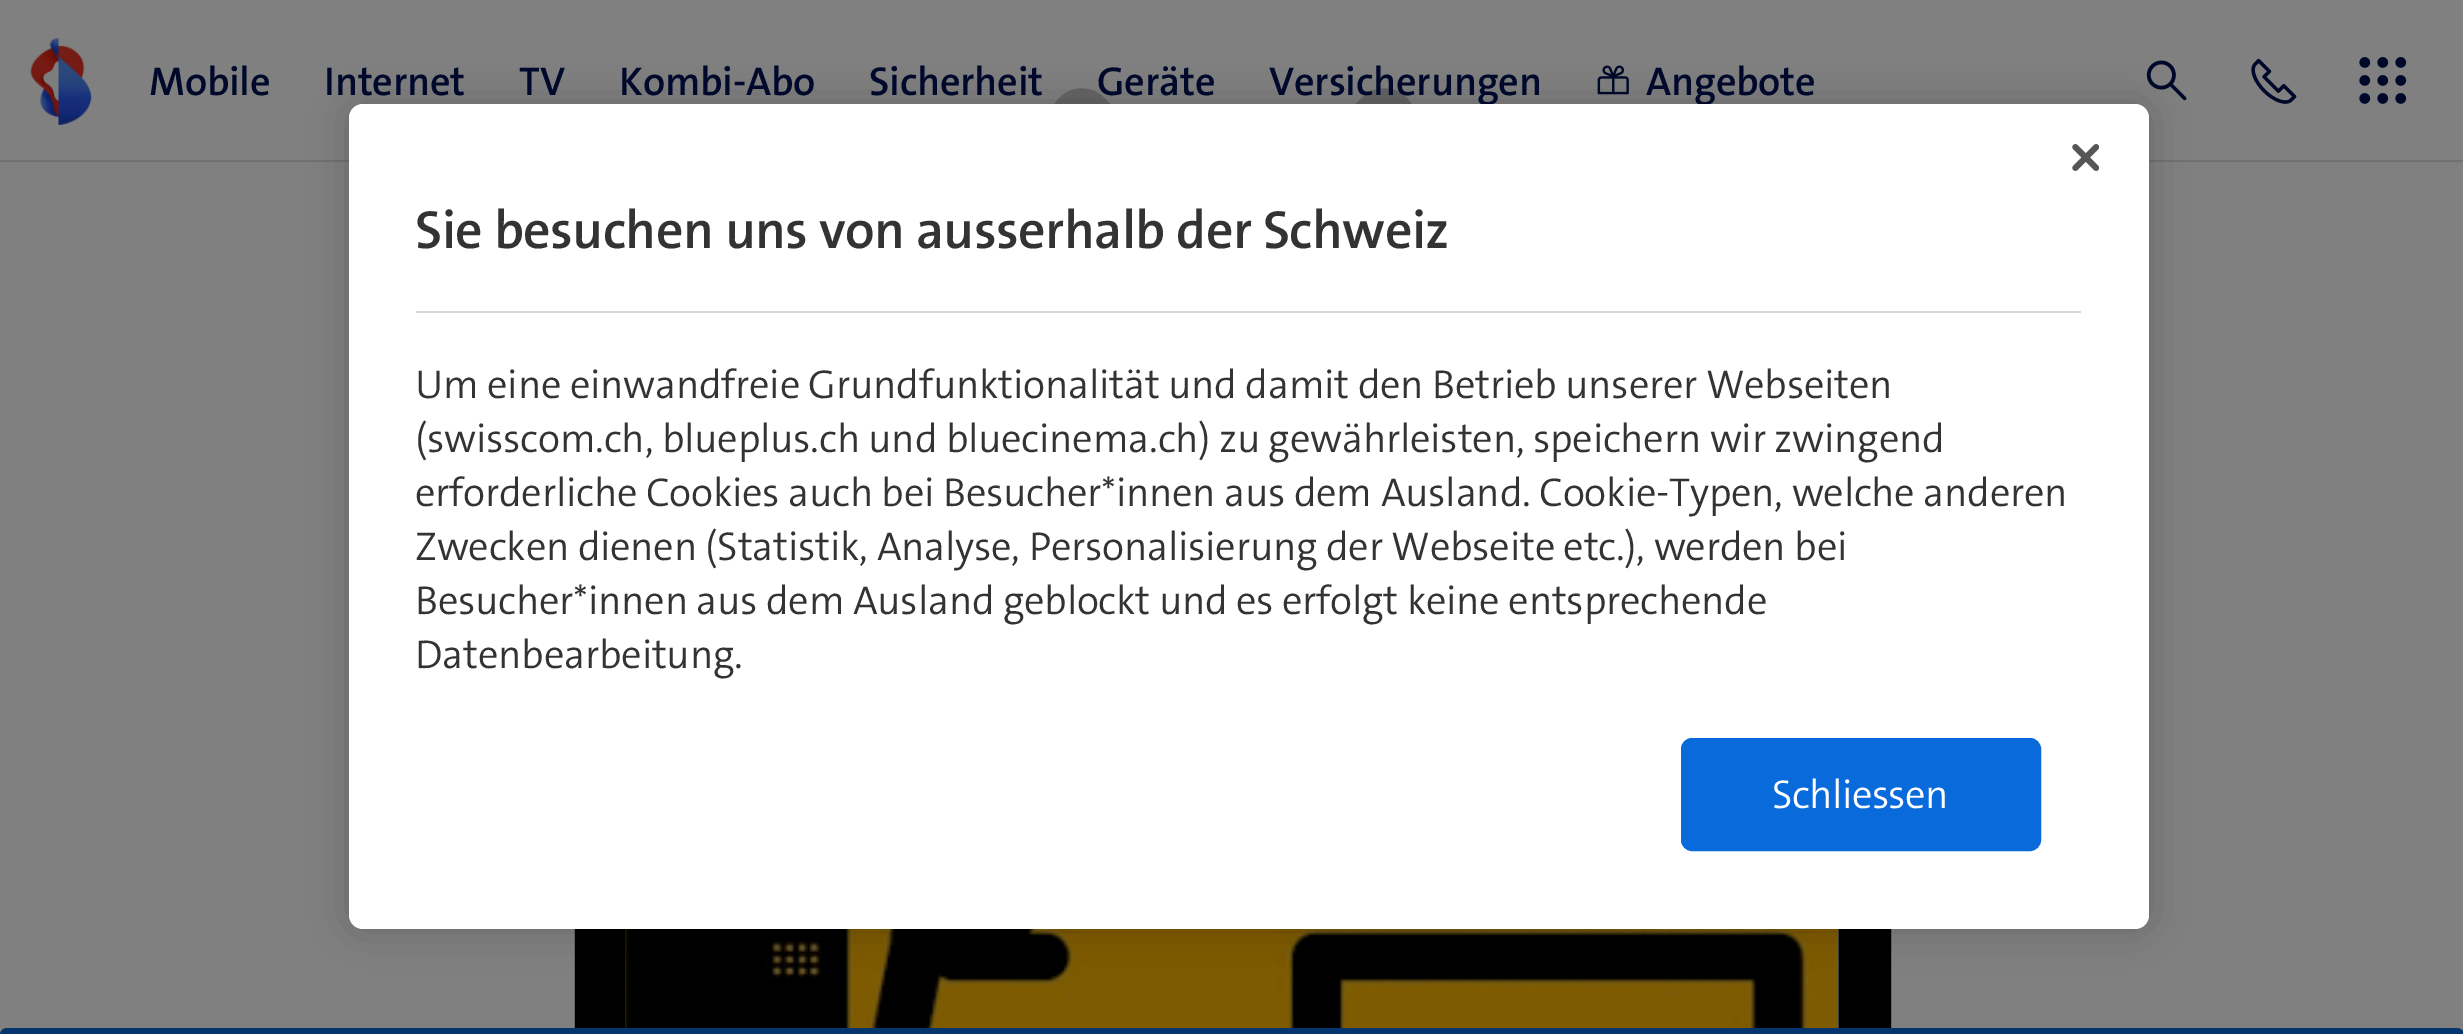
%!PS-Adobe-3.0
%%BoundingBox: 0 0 2463 1034
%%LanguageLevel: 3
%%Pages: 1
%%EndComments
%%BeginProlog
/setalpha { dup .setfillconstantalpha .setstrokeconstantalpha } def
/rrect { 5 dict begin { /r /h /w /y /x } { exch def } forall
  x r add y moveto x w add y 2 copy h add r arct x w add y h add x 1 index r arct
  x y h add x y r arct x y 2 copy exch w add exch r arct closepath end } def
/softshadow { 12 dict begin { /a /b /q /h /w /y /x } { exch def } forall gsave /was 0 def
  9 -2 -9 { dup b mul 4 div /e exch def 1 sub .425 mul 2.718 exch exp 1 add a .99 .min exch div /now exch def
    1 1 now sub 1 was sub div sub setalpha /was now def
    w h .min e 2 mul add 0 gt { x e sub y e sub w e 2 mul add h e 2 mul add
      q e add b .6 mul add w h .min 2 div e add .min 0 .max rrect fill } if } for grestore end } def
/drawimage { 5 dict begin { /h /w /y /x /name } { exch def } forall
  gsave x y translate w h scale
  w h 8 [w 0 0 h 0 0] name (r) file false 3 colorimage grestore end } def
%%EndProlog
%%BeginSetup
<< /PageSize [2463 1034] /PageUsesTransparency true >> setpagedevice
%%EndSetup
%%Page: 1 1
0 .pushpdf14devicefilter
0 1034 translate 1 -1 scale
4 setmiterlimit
0.502 setgray
0 0 2463 1034 rectfill
(images/6.raw) 574 88 1318 940 drawimage
0.8 setalpha
1050 88 366 72 rectfill
1 setalpha
(images/1.raw) 30 38 62 87 drawimage
(images/2.raw) 1597 65 32 30 drawimage
(images/3.raw) 2146 60 41 41 drawimage
(images/4.raw) 2251 58 46 46 drawimage
(images/5.raw) 2359 57 48 47 drawimage
0.435 0.447 0.455 setrgbcolor
0 160 2463 2 rectfill
(images/7.raw) 625 929 1213 99 drawimage
0.016 0.208 0.431 setrgbcolor
newpath 7 1028 moveto 2457 1028 lineto 2461 1028 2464 1031 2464 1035 curveto 0 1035 lineto 0 1031 3 1028 7 1028 curveto closepath fill
0 setgray
349 104 1800 825 14 20 0.2 softshadow
/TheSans-SemiBold [40.5 0 0 -40.5 0 0] selectfont
0 0.035 0.169 setrgbcolor
149 95 moveto -0.23 0 (Mobile) ashow
324 95 moveto -0.23 0 (Internet) ashow
519 95 moveto -0.23 0 (TV) ashow
619 95 moveto -0.23 0 (Kombi-Abo) ashow
869 95 moveto -0.23 0 (Sicherheit) ashow
1097 95 moveto -0.23 0 (Geräte) ashow
1269 95 moveto -0.23 0 (Versicherungen) ashow
1646 95 moveto -0.23 0 (Angebote) ashow
1 setgray
349 104 1800 825 14 rrect fill
(images/8.raw) 2072 144 27 27 drawimage
/TheSans-SemiBold [54 0 0 -54 0 0] selectfont
0.2 setgray
415 248 moveto -0.55 0 (Sie besuchen uns von ausserhalb der Schweiz) ashow
0.839 setgray
416 311 1665 2 rectfill
/TheSans-Light [40.5 0 0 -40.5 0 0] selectfont
0.2 setgray
415 398 moveto -0.23 0 (Um eine einwandfreie Grundfunktionalität und damit den Betrieb unserer Webseiten) ashow
415 452 moveto -0.23 0 (\(swisscom.ch, blueplus.ch und bluecinema.ch\) zu gewährleisten, speichern wir zwingend) ashow
415 506 moveto -0.23 0 (erforderliche Cookies auch bei Besucher*innen aus dem Ausland. Cookie-Typen, welche anderen) ashow
415 560 moveto -0.23 0 (Zwecken dienen \(Statistik, Analyse, Personalisierung der Webseite etc.\), werden bei) ashow
415 614 moveto -0.23 0 (Besucher*innen aus dem Ausland geblockt und es erfolgt keine entsprechende) ashow
415 668 moveto -0.23 0 (Datenbearbeitung.) ashow
0.031 0.416 0.859 setrgbcolor
1682 739 358 111 10 rrect gsave fill grestore
2 setlinewidth
stroke
1 setgray
1772 808 moveto -0.55 0 (Schliessen) ashow
.poppdf14devicefilter showpage
%%EOF
